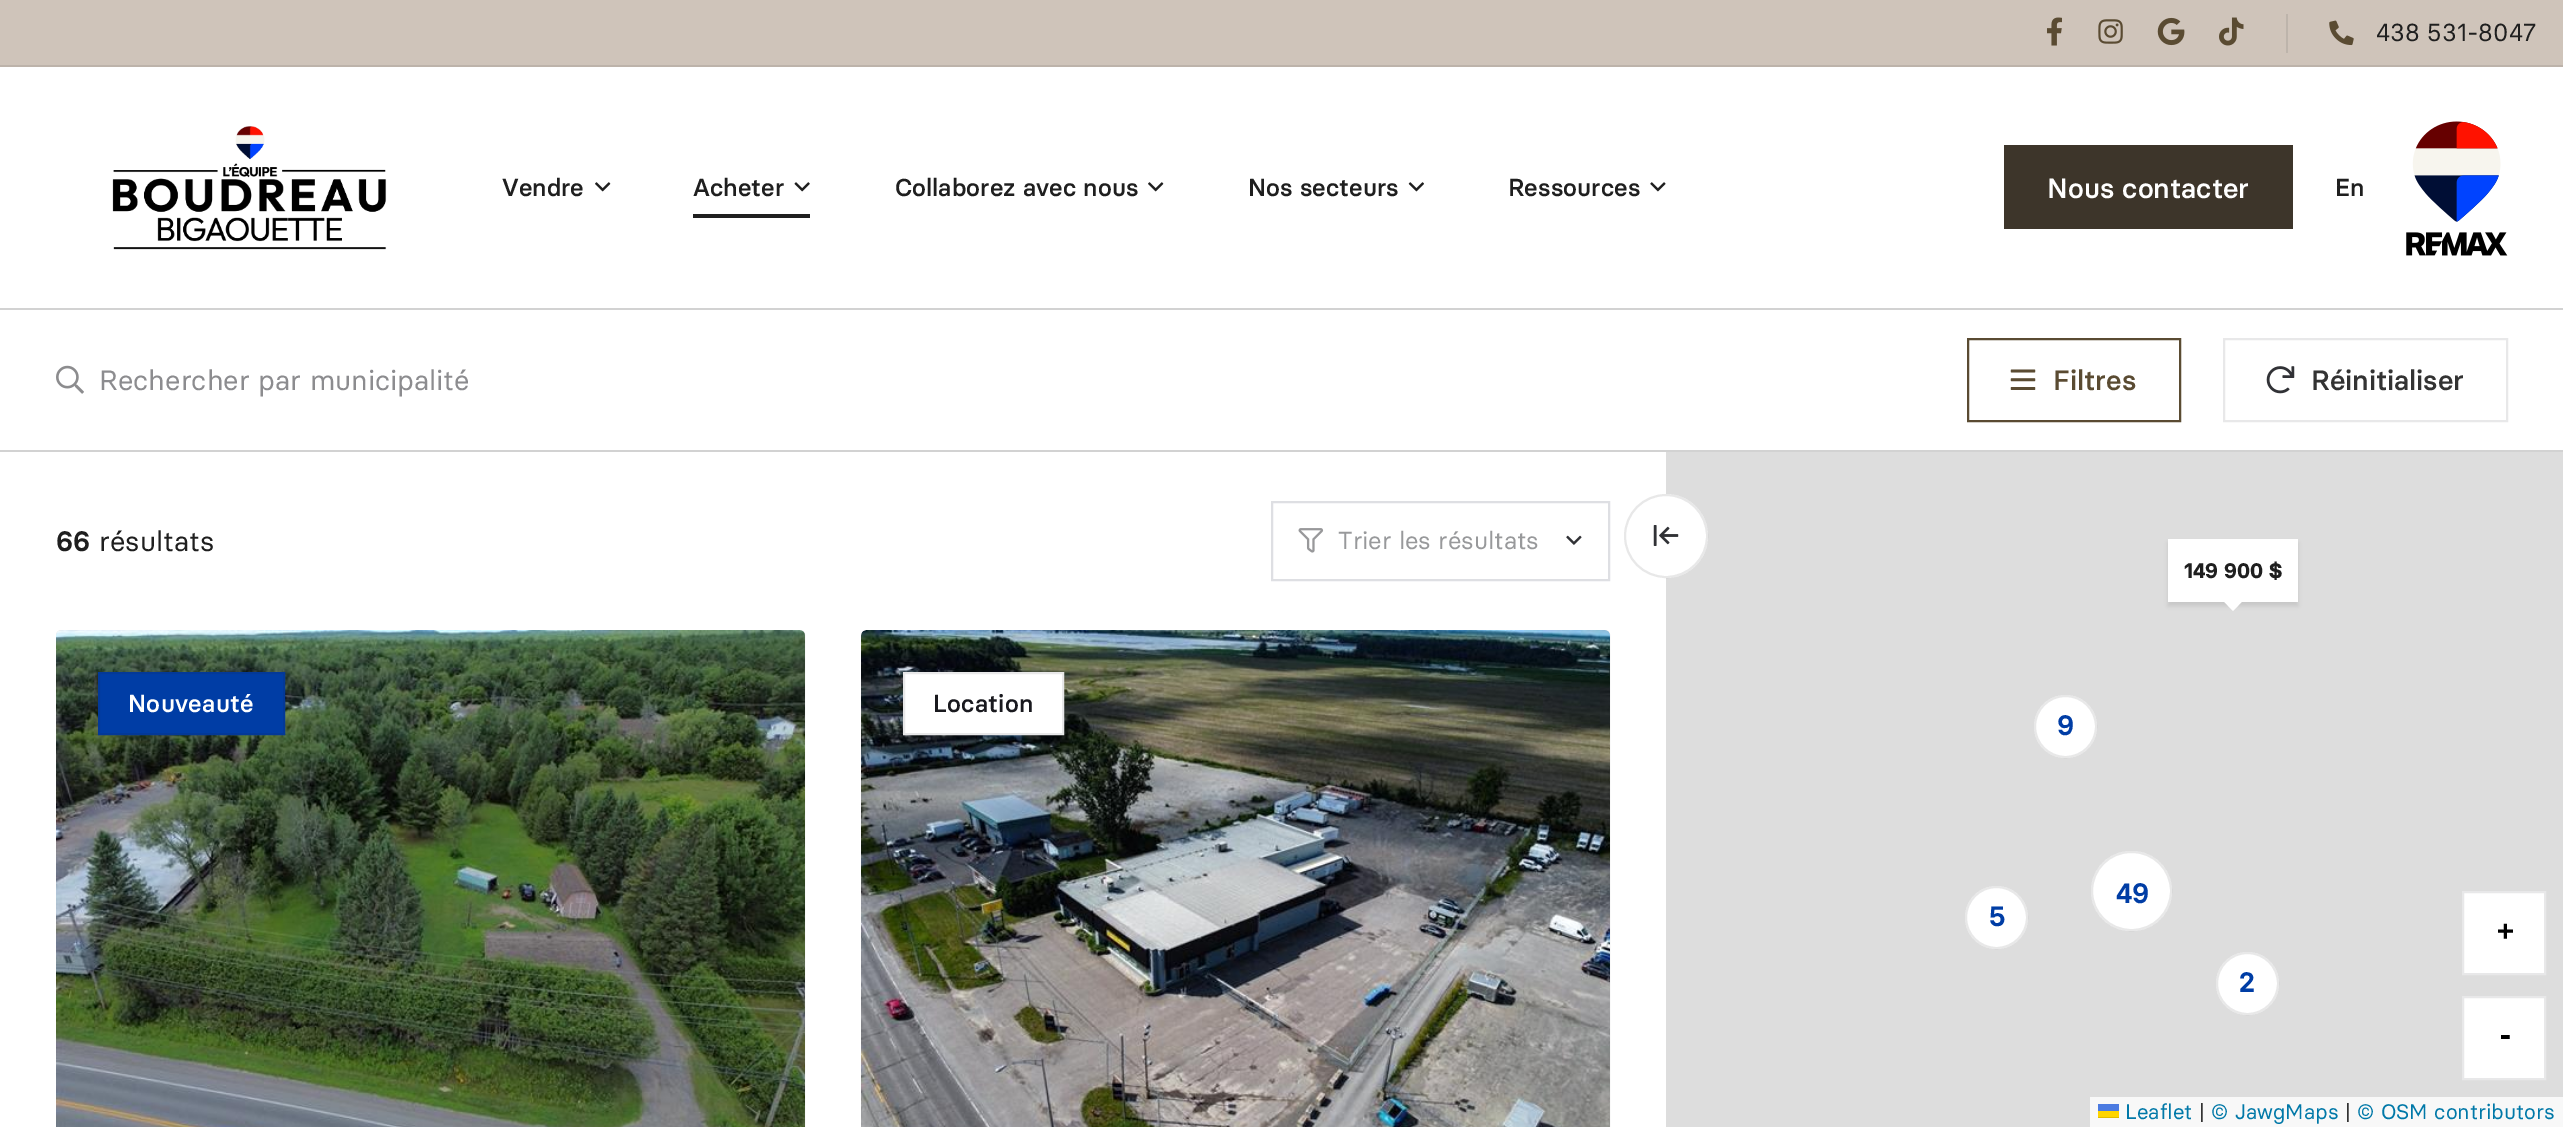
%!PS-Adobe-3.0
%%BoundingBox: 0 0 2563 1127
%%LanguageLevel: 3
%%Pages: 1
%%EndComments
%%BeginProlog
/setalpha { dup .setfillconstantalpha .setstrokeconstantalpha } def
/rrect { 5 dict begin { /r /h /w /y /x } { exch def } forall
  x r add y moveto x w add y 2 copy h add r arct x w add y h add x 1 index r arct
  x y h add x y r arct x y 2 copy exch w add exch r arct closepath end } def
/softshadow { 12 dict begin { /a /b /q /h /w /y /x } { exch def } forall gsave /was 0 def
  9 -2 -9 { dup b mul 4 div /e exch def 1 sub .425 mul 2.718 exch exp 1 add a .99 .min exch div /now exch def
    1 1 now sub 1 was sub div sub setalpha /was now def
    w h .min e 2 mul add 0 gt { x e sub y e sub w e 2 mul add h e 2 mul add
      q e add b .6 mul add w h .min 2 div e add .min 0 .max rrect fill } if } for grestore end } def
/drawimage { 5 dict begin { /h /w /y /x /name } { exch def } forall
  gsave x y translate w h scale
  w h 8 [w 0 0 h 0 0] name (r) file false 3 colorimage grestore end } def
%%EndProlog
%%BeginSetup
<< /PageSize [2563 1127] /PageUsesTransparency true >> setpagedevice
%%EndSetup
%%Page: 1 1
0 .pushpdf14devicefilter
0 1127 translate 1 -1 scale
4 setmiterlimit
1 setgray
0 0 2563 1127 rectfill
0.812 0.769 0.729 setrgbcolor
0 0 2563 65 rectfill
0.741 0.702 0.667 setrgbcolor
0 65 2563 2 rectfill
(images/1.raw) 2047 17 15 29 drawimage
(images/2.raw) 2098 19 25 25 drawimage
(images/3.raw) 2157 17 28 29 drawimage
(images/4.raw) 2219 17 25 29 drawimage
0.741 0.706 0.671 setrgbcolor
2286 14 2 39 rectfill
(images/5.raw) 2329 20 25 26 drawimage
(images/6.raw) 112 126 275 124 drawimage
(images/7.raw) 595 182 16 10 drawimage
(images/8.raw) 794 182 16 10 drawimage
0.122 setgray
693 214 117 4 rectfill
(images/7.raw) 1148 182 16 10 drawimage
(images/9.raw) 1408 182 16 10 drawimage
(images/10.raw) 1650 182 16 10 drawimage
0.239 0.208 0.165 setrgbcolor
2004 145 289 84 rectfill
(images/11.raw) 2406 121 102 135 drawimage
0.824 setgray
0 308 2563 2 rectfill
0 450 2563 2 rectfill
(images/12.raw) 56 365 28 29 drawimage
0.353 0.294 0.196 setrgbcolor
2 setlinewidth
1968 339 212 82 rectstroke
(images/13.raw) 2010 369 26 21 drawimage
0.91 0.91 0.914 setrgbcolor
2224 339 283 82 rectstroke
(images/14.raw) 2266 366 29 28 drawimage
0.871 0.875 0.89 setrgbcolor
1272 502 337 78 rectstroke
(images/15.raw) 1298 528 26 25 drawimage
(images/16.raw) 1566 535 16 10 drawimage
0.91 0.91 0.914 setrgbcolor
57 631 747 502 4 rrect stroke
(images/17.raw) 56 630 749 497 drawimage
0 0.239 0.647 setrgbcolor
newpath 99 673 moveto 284 673 lineto 284 734 lineto 99 734 lineto closepath gsave fill grestore
0.012 0.224 0.596 setrgbcolor
stroke
0.91 0.91 0.914 setrgbcolor
862 631 747 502 4 rrect stroke
(images/18.raw) 861 630 749 497 drawimage
1 setgray
newpath 904 673 moveto 1063 673 lineto 1063 734 lineto 904 734 lineto closepath gsave fill grestore
0.91 0.91 0.914 setrgbcolor
stroke
0.867 setgray
1666 452 897 675 rectfill
1 setgray
newpath 1666 536 42 0 360 arc closepath fill
0.1 setalpha
0.098 0.098 0.118 setrgbcolor
newpath 1666 536 41 0 360 arc closepath stroke
1 setalpha
(images/19.raw) 1653 525 26 21 drawimage
0 setgray
2168 543 130 63 0 2 0.1 softshadow
1 setgray
2168 539 130 63 rectfill
newpath 2222.5 600 moveto 2243.5 600 lineto 2233 611 lineto closepath fill
newpath 2065.5 726.5 31.5 0 360 arc closepath fill
0.1 setalpha
0.098 0.098 0.118 setrgbcolor
newpath 2065.5 726.5 30.5 0 360 arc closepath stroke
1 setalpha
1 setgray
2091 851 81 80 40 rrect fill
0.1 setalpha
0.098 0.098 0.118 setrgbcolor
2092 852 79 78 39 rrect stroke
1 setalpha
1 setgray
newpath 1996.5 917.5 31.5 0 360 arc closepath fill
0.1 setalpha
0.098 0.098 0.118 setrgbcolor
newpath 1996.5 917.5 30.5 0 360 arc closepath stroke
1 setalpha
1 setgray
newpath 2247.5 983.5 31.5 0 360 arc closepath fill
0.1 setalpha
0.098 0.098 0.118 setrgbcolor
newpath 2247.5 983.5 30.5 0 360 arc closepath stroke
1 setalpha
1 setgray
newpath 2463 892 moveto 2545 892 lineto 2545 974 lineto 2463 974 lineto closepath gsave fill grestore
0.91 0.91 0.914 setrgbcolor
stroke
1 setgray
newpath 2463 997 moveto 2545 997 lineto 2545 1079 lineto 2463 1079 lineto closepath gsave fill grestore
0.91 0.91 0.914 setrgbcolor
stroke
0.973 setgray
2090 1097 473 30 rectfill
0.298 0.482 0.882 setrgbcolor
2098 1104 21 7 rectfill
1 0.835 0 setrgbcolor
2098 1111 21 6 rectfill
0.878 0.737 0 setrgbcolor
2098 1117 21 1 rectfill
/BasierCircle-Regular [24.5 0 0 -24.5 0 0] selectfont
0.122 setgray
2376 41 moveto (438 531-8047) show
/BasierCircle-Medium [24.5 0 0 -24.5 0 0] selectfont
502 196 moveto (Vendre) show
693 196 moveto (Acheter) show
895 196 moveto (Collaborez avec nous) show
1248 196 moveto (Nos secteurs) show
1508 196 moveto (Ressources) show
/BasierCircle-Medium [28 0 0 -28 0 0] selectfont
1 setgray
2047 198 moveto (Nous contacter) show
/BasierCircle-Medium [24.5 0 0 -24.5 0 0] selectfont
0.122 setgray
2335 196 moveto (En) show
/BasierCircle-Regular [28 0 0 -28 0 0] selectfont
0.549 0.549 0.561 setrgbcolor
99 390 moveto (Rechercher par municipalité) show
/BasierCircle-Medium [28 0 0 -28 0 0] selectfont
0.353 0.294 0.196 setrgbcolor
2053 390 moveto (Filtres) show
0.2 setgray
2311 390 moveto (Réinitialiser) show
/BasierCircle-SemiBold [28 0 0 -28 0 0] selectfont
0.122 setgray
56 551 moveto (66) show
/BasierCircle-Regular [28 0 0 -28 0 0] selectfont
99 551 moveto (résultats) show
/BasierCircle-Regular [24.5 0 0 -24.5 0 0] selectfont
0.596 0.6 0.608 setrgbcolor
1338 549 moveto (Trier les résultats) show
/BasierCircle-Medium [24.5 0 0 -24.5 0 0] selectfont
1 setgray
128 712 moveto 0.25 0 (Nouveauté) ashow
0.098 0.098 0.118 setrgbcolor
933 712 moveto 0.25 0 (Location) ashow
/BasierCircle-Bold [21 0 0 -21 0 0] selectfont
0.122 setgray
2184 578 moveto (149 900 $) show
/BasierCircle-SemiBold [28 0 0 -28 0 0] selectfont
0 0.239 0.647 setrgbcolor
2057 735 moveto (9) show
2116 903 moveto (49) show
1989 926 moveto (5) show
2239 992 moveto (2) show
/DejaVuSansMono-Bold [28 0 0 -28 0 0] selectfont
0 setgray
2497 940 moveto (+) show
2497 1045 moveto (-) show
/BasierCircle-Regular [21 0 0 -21 0 0] selectfont
0 0.471 0.659 setrgbcolor
2125 1119 moveto (Leaflet) show
0.2 setgray
2199 1119 moveto (|) show
0 0.471 0.659 setrgbcolor
2211 1119 moveto (© JawgMaps) show
0.2 setgray
2345 1119 moveto (|) show
0 0.471 0.659 setrgbcolor
2357 1119 moveto (© OSM contributors) show
.poppdf14devicefilter showpage
%%EOF
